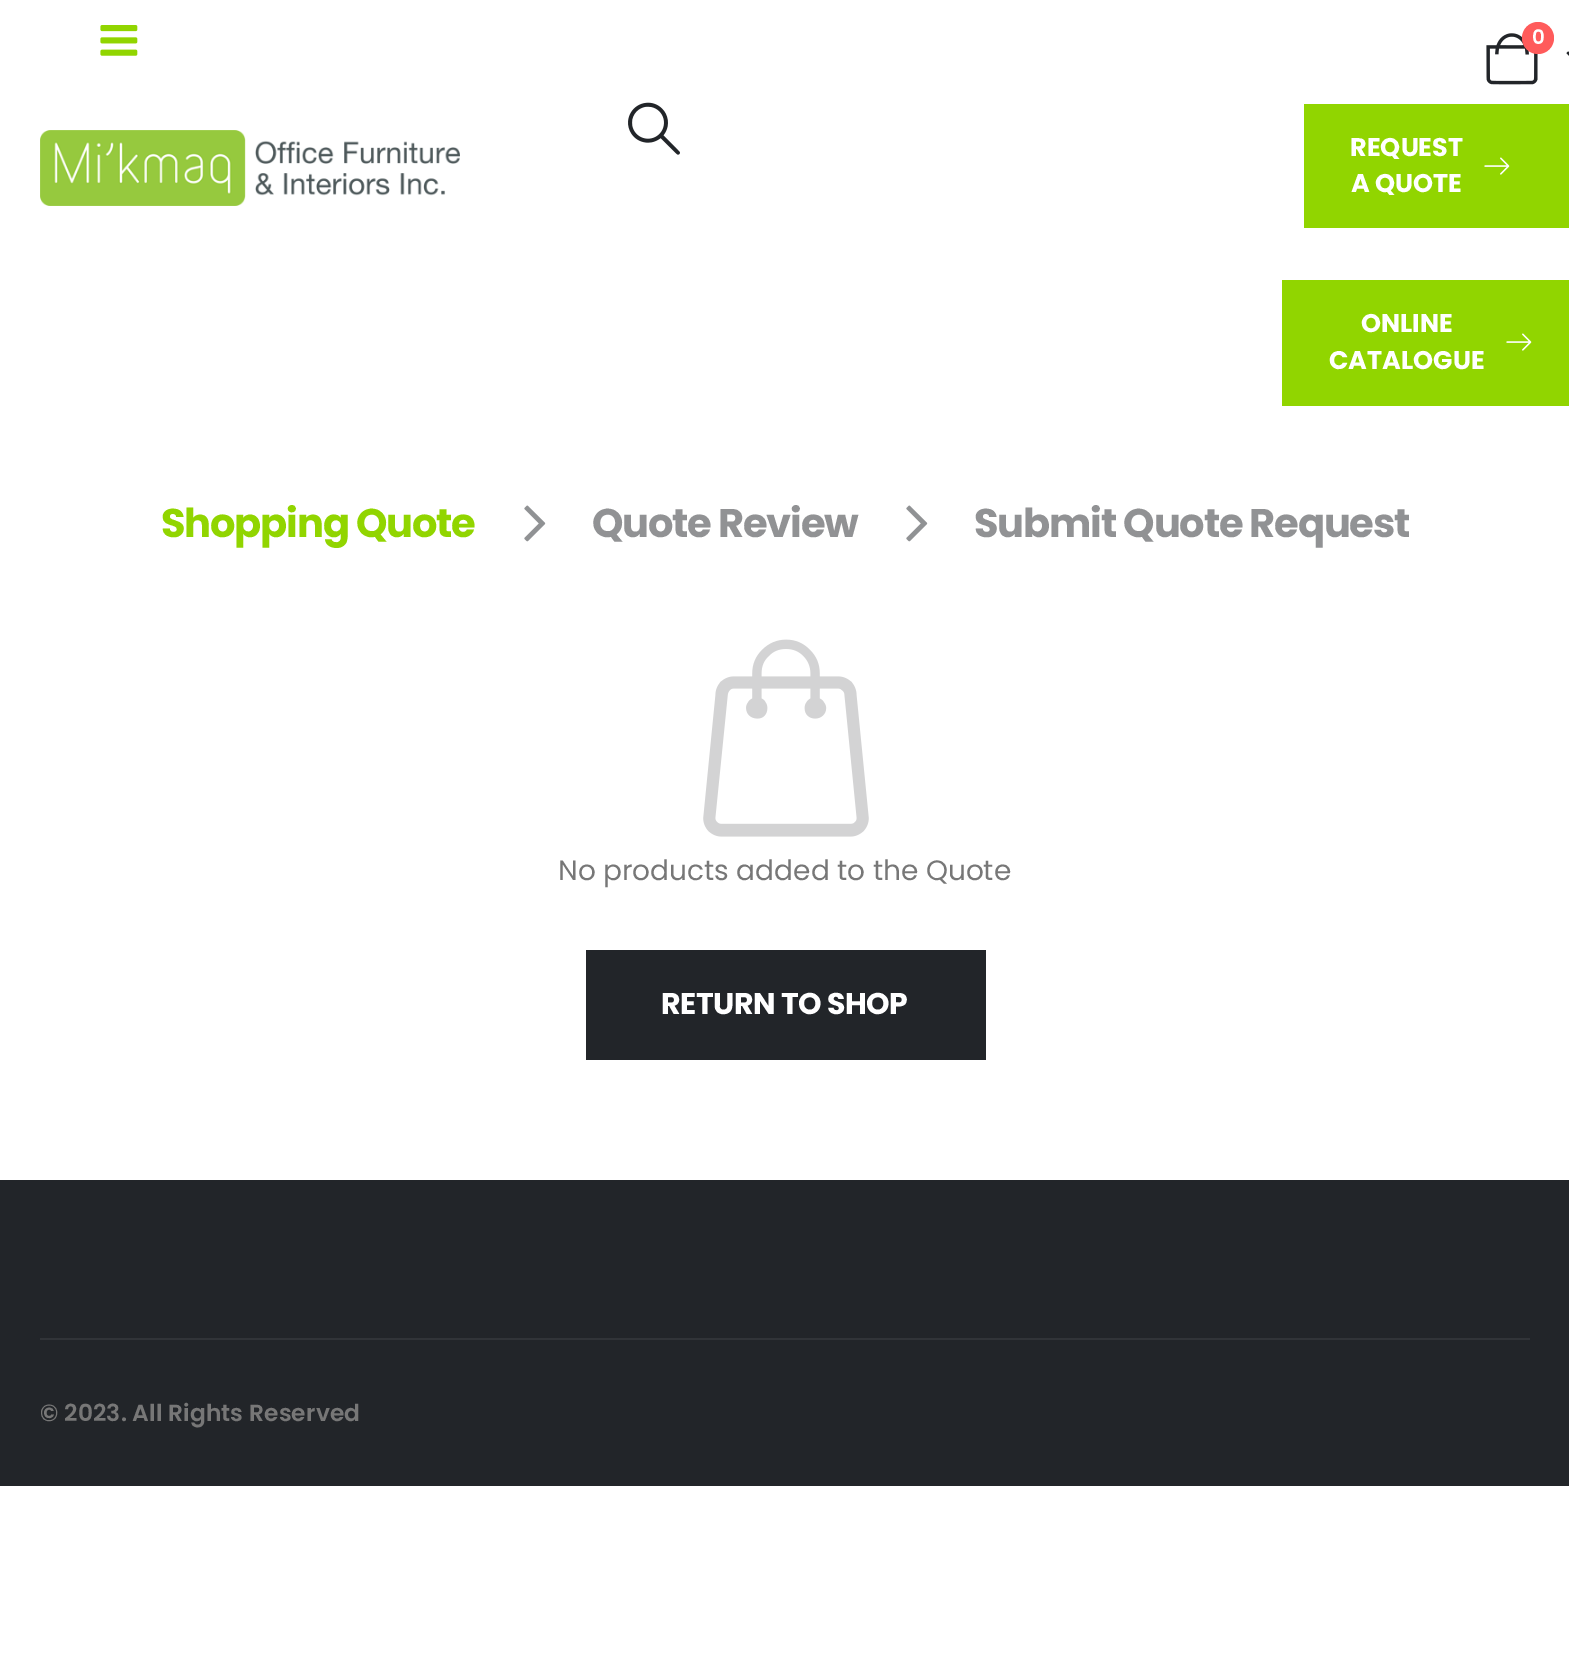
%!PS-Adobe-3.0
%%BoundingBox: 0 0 1569 1661
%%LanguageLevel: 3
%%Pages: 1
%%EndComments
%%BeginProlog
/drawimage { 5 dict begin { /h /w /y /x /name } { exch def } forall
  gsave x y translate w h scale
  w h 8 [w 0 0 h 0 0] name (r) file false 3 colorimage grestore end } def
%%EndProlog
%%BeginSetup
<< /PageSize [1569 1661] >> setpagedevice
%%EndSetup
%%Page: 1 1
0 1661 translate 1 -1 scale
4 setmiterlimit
1 setgray
0 0 1569 1661 rectfill
(images/1.raw) 100 25 38 31 drawimage
(images/2.raw) 40 130 420 76 drawimage
(images/3.raw) 628 102 52 53 drawimage
(images/4.raw) 1486 33 52 52 drawimage
1 0.357 0.357 setrgbcolor
newpath 1538 38 16 0 360 arc closepath fill
(images/5.raw) 1566 51 3 5 drawimage
0.569 0.835 0 setrgbcolor
1304 104 265 124 rectfill
(images/6.raw) 1484 157 26 18 drawimage
1282 280 287 126 rectfill
(images/6.raw) 1506 333 26 18 drawimage
(images/7.raw) 524 505 22 37 drawimage
(images/7.raw) 906 505 22 37 drawimage
(images/8.raw) 703 639 166 198 drawimage
0.133 0.145 0.161 setrgbcolor
586 950 400 110 rectfill
0 1180 1569 306 rectfill
0.192 0.204 0.22 setrgbcolor
40 1338 1490 2 rectfill
/Poppins-SemiBold [20 0 0 -20 0 0] selectfont
1 setgray
1532 44 moveto (0) show
/Poppins-Bold [25.5 0 0 -25.5 0 0] selectfont
1350 156 moveto (REQUEST) show
1351 192 moveto (A QUOTE) show
1361 332 moveto (ONLINE) show
1329 369 moveto (CATALOGUE) show
/Poppins-Bold [40 0 0 -40 0 0] selectfont
0.569 0.835 0 setrgbcolor
161 537 moveto -1.2 0 (Shopping Quote) ashow
0.569 0.573 0.58 setrgbcolor
592 537 moveto -1.2 0 (Quote Review) ashow
974 537 moveto -1.2 0 (Submit Quote Request) ashow
/Poppins-Regular [28 0 0 -28 0 0] selectfont
0.467 setgray
558 880 moveto (No products added to the Quote) show
/Poppins-Bold [30 0 0 -30 0 0] selectfont
1 setgray
661 1014 moveto -0.5 0 (RETURN TO SHOP) ashow
/Poppins-SemiBold [23.4 0 0 -23.4 0 0] selectfont
0.467 setgray
40 1421 moveto 0.1 0 (© 2023. All Rights Reserved) ashow
showpage
%%EOF
